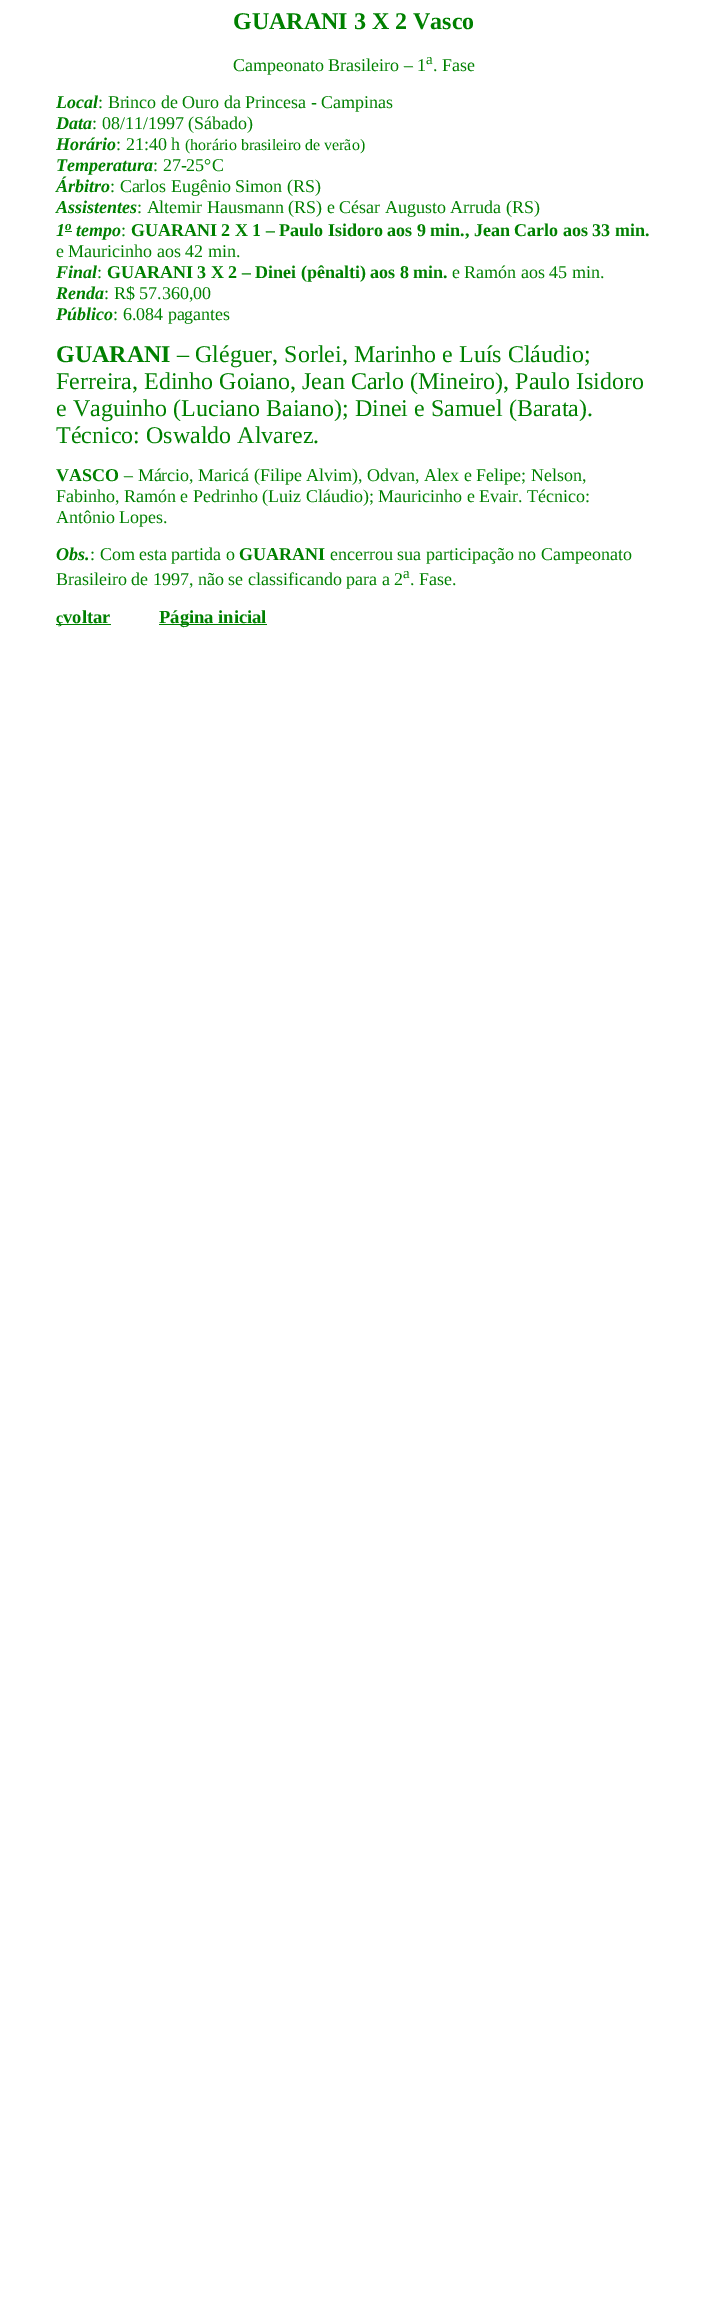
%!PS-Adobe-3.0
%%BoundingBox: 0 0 708 2324
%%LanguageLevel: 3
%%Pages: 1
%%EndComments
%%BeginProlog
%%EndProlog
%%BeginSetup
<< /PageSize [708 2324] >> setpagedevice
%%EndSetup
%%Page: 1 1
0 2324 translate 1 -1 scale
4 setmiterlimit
1 setgray
0 0 708 2324 rectfill
0 0.502 0 setrgbcolor
65 231 7 1 rectfill
56 624 55 1 rectfill
159 624 108 1 rectfill
/LiberationSerif-Bold [24 0 0 -24 0 0] selectfont
233 29 moveto (GUARANI 3 X 2 Vasco) show
/LiberationSerif-Regular [18 0 0 -18 0 0] selectfont
233 71 moveto (Campeonato Brasileiro – 1) show
/LiberationSerif-Regular [15 0 0 -15 0 0] selectfont
426 64 moveto (a) show
/LiberationSerif-Regular [18 0 0 -18 0 0] selectfont
433 71 moveto (. Fase) show
/LiberationSerif-BoldItalic [18 0 0 -18 0 0] selectfont
56 108 moveto (Local) show
/LiberationSerif-Regular [18 0 0 -18 0 0] selectfont
98 108 moveto (: Brinco de Ouro da Princesa - Campinas) show
/LiberationSerif-BoldItalic [18 0 0 -18 0 0] selectfont
56 129 moveto (Data) show
/LiberationSerif-Regular [18 0 0 -18 0 0] selectfont
92 129 moveto (: 08/11/1997 \(Sábado\)) show
/LiberationSerif-BoldItalic [18 0 0 -18 0 0] selectfont
56 150 moveto (Horário) show
/LiberationSerif-Regular [18 0 0 -18 0 0] selectfont
116 150 moveto (: 21:40 h) show
/LiberationSerif-Regular [16 0 0 -16 0 0] selectfont
185 150 moveto (\(horário brasileiro de verão\)) show
/LiberationSerif-BoldItalic [18 0 0 -18 0 0] selectfont
56 171 moveto (Temperatura) show
/LiberationSerif-Regular [18 0 0 -18 0 0] selectfont
153 171 moveto (: 27-25°C) show
/LiberationSerif-BoldItalic [18 0 0 -18 0 0] selectfont
56 192 moveto (Árbitro) show
/LiberationSerif-Regular [18 0 0 -18 0 0] selectfont
110 192 moveto (: Carlos Eugênio Simon \(RS\)) show
/LiberationSerif-BoldItalic [18 0 0 -18 0 0] selectfont
56 213 moveto (Assistentes) show
/LiberationSerif-Regular [18 0 0 -18 0 0] selectfont
137 213 moveto (: Altemir Hausmann \(RS\) e César Augusto Arruda \(RS\)) show
/LiberationSerif-BoldItalic [18 0 0 -18 0 0] selectfont
56 236 moveto (1) show
/LiberationSerif-BoldItalic [13 0 0 -13 0 0] selectfont
65 230 moveto (o) show
/LiberationSerif-BoldItalic [18 0 0 -18 0 0] selectfont
76 236 moveto (tempo) show
/LiberationSerif-Regular [18 0 0 -18 0 0] selectfont
121 236 moveto (:) show
/LiberationSerif-Bold [18 0 0 -18 0 0] selectfont
131 236 moveto (GUARANI 2 X 1 – Paulo Isidoro aos 9 min., Jean Carlo aos 33 min.) show
/LiberationSerif-Regular [18 0 0 -18 0 0] selectfont
56 257 moveto (e Mauricinho aos 42 min.) show
/LiberationSerif-BoldItalic [18 0 0 -18 0 0] selectfont
56 278 moveto (Final) show
/LiberationSerif-Regular [18 0 0 -18 0 0] selectfont
97 278 moveto (:) show
/LiberationSerif-Bold [18 0 0 -18 0 0] selectfont
107 278 moveto (GUARANI 3 X 2 – Dinei \(pênalti\) aos 8 min.) show
/LiberationSerif-Regular [18 0 0 -18 0 0] selectfont
452 278 moveto (e Ramón aos 45 min.) show
/LiberationSerif-BoldItalic [18 0 0 -18 0 0] selectfont
56 299 moveto (Renda) show
/LiberationSerif-Regular [18 0 0 -18 0 0] selectfont
104 299 moveto (: R$ 57.360,00) show
/LiberationSerif-BoldItalic [18 0 0 -18 0 0] selectfont
56 320 moveto (Público) show
/LiberationSerif-Regular [18 0 0 -18 0 0] selectfont
113 320 moveto (: 6.084 pagantes) show
/LiberationSerif-Bold [24 0 0 -24 0 0] selectfont
56 362 moveto (GUARANI) show
/LiberationSerif-Regular [24 0 0 -24 0 0] selectfont
177 362 moveto (– Gléguer, Sorlei, Marinho e Luís Cláudio;) show
56 389 moveto (Ferreira, Edinho Goiano, Jean Carlo \(Mineiro\), Paulo Isidoro) show
56 416 moveto (e Vaguinho \(Luciano Baiano\); Dinei e Samuel \(Barata\).) show
56 443 moveto (Técnico: Oswaldo Alvarez.) show
/LiberationSerif-Bold [18 0 0 -18 0 0] selectfont
56 481 moveto (VASCO) show
/LiberationSerif-Regular [18 0 0 -18 0 0] selectfont
124 481 moveto (– Márcio, Maricá \(Filipe Alvim\), Odvan, Alex e Felipe; Nelson,) show
56 502 moveto (Fabinho, Ramón e Pedrinho \(Luiz Cláudio\); Mauricinho e Evair. Técnico:) show
56 523 moveto (Antônio Lopes.) show
/LiberationSerif-BoldItalic [18 0 0 -18 0 0] selectfont
56 560 moveto (Obs.) show
/LiberationSerif-Regular [18 0 0 -18 0 0] selectfont
90 560 moveto (: Com esta partida o) show
/LiberationSerif-Bold [18 0 0 -18 0 0] selectfont
239 560 moveto (GUARANI) show
/LiberationSerif-Regular [18 0 0 -18 0 0] selectfont
330 560 moveto (encerrou sua participação no Campeonato) show
56 585 moveto (Brasileiro de 1997, não se classificando para a 2) show
/LiberationSerif-Regular [15 0 0 -15 0 0] selectfont
403 578 moveto (a) show
/LiberationSerif-Regular [18 0 0 -18 0 0] selectfont
410 585 moveto (. Fase.) show
/LiberationSerif-Bold [16 0 0 -16 0 0] selectfont
56 623 moveto (ç) show
/LiberationSerif-Bold [18.5 0 0 -18.5 0 0] selectfont
63 623 moveto (voltar) show
159 623 moveto (Página inicial) show
showpage
%%EOF
